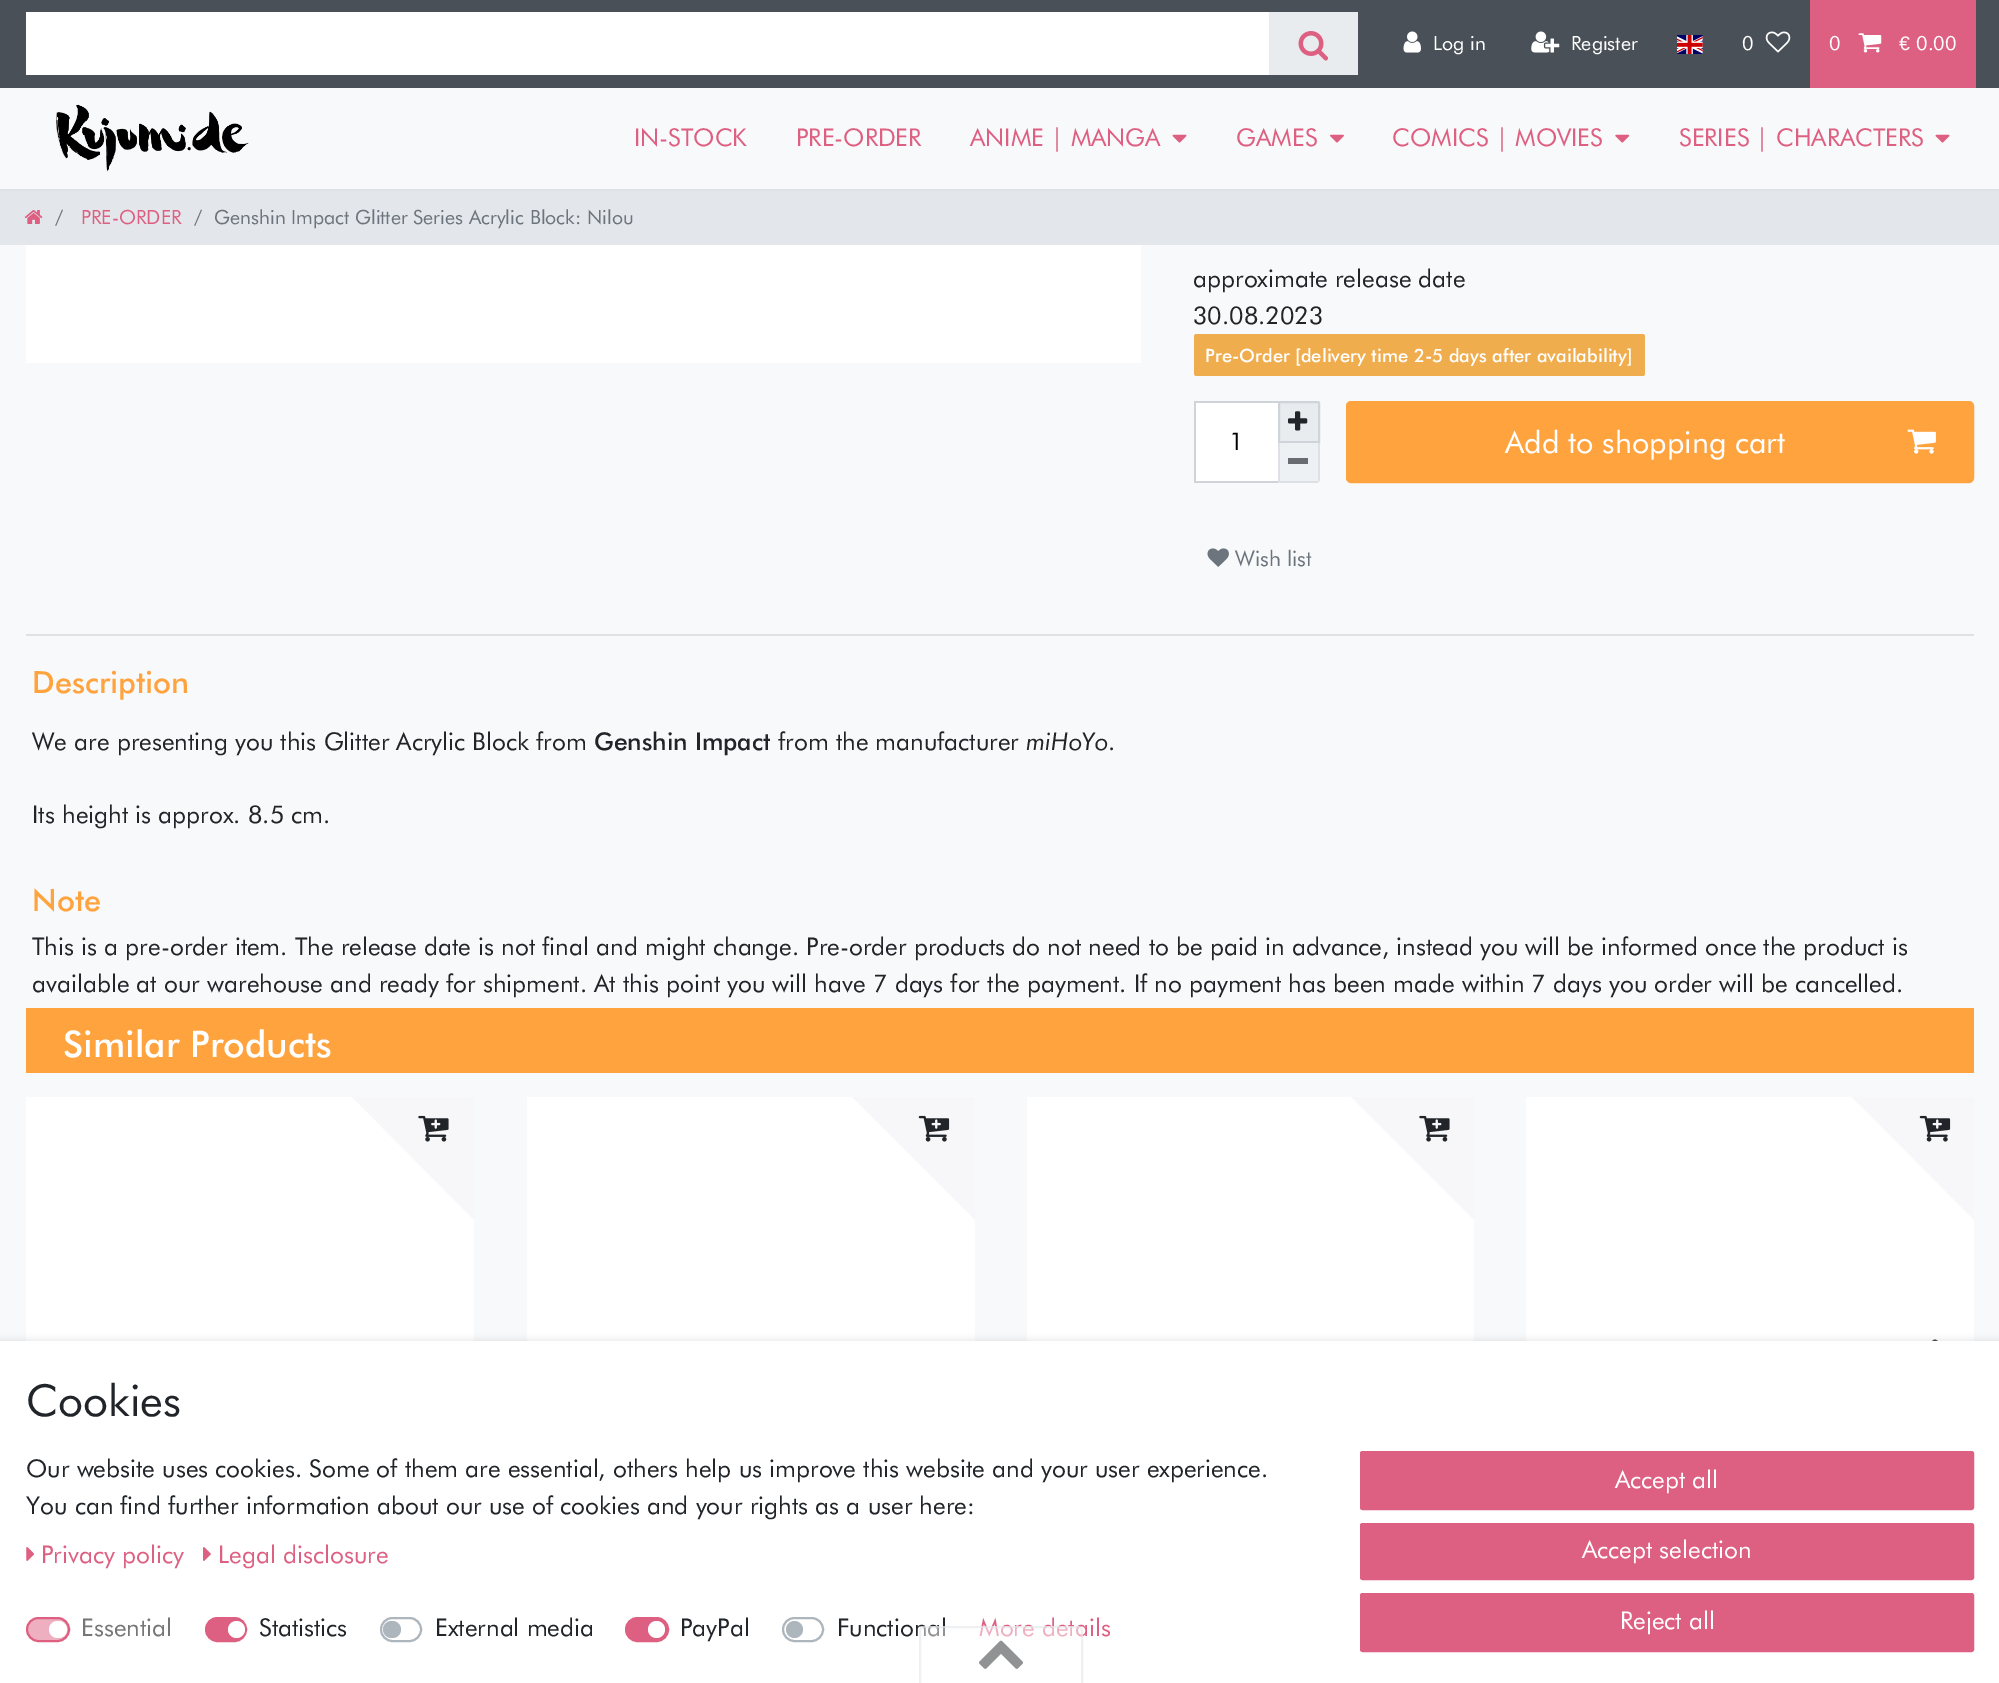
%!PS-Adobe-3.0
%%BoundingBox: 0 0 1999 1683
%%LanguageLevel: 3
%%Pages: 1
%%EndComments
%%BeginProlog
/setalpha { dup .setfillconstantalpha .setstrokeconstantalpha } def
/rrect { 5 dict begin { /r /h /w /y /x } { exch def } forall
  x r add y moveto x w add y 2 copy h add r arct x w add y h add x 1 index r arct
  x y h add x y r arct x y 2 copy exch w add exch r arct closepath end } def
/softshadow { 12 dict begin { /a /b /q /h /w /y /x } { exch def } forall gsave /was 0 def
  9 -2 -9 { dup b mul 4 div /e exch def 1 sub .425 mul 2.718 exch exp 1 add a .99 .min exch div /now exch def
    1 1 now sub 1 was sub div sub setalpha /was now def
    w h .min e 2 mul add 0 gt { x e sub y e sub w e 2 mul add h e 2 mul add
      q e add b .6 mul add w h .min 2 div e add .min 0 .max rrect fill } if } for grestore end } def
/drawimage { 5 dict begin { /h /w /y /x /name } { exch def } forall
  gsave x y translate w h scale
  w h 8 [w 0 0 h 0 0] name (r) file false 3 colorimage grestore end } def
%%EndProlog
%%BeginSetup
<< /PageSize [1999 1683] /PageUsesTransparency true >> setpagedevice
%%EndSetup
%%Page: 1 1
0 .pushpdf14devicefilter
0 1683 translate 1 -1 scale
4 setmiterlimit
0.973 0.976 0.98 setrgbcolor
0 0 1999 1683 rectfill
0.286 0.314 0.341 setrgbcolor
0 0 1999 88 rectfill
1 setgray
26 12 1243 63 rectfill
0.914 0.925 0.937 setrgbcolor
1269 12 89 63 rectfill
(images/1.raw) 1298 31 30 30 drawimage
(images/2.raw) 1403 31 18 22 drawimage
(images/3.raw) 1531 31 29 22 drawimage
(images/4.raw) 1677 35 26 19 drawimage
(images/5.raw) 1765 31 26 22 drawimage
0.867 0.376 0.51 setrgbcolor
1810 0 166 88 rectfill
(images/6.raw) 1858 33 24 20 drawimage
0.871 0.886 0.902 setrgbcolor
0 189 1999 2 rectfill
(images/7.raw) 56 104 193 68 drawimage
(images/8.raw) 1172 134 15 9 drawimage
(images/9.raw) 1330 134 14 9 drawimage
(images/10.raw) 1615 134 15 9 drawimage
(images/8.raw) 1935 134 15 9 drawimage
0.89 0.906 0.922 setrgbcolor
0 191 1999 54 rectfill
(images/11.raw) 24 210 19 14 drawimage
(images/12.raw) 26 245 1115 118 drawimage
0.941 0.678 0.306 setrgbcolor
1194 334 451 42 2.5 rrect fill
1 setgray
1196 403 82 78 rectfill
0.808 0.831 0.855 setrgbcolor
1194 401 84 2 rectfill
1194 481 84 2 rectfill
1194 401 2 82 rectfill
0.914 0.925 0.937 setrgbcolor
newpath 1279 402 moveto 1317.5 402 lineto 1318.5 402 1319 402.5 1319 403.5 curveto 1319 442 lineto 1279 442 lineto closepath gsave fill grestore
0.808 0.831 0.855 setrgbcolor
2 setlinewidth
stroke
(images/13.raw) 1288 411 20 20 drawimage
0.933 0.945 0.953 setrgbcolor
newpath 1278 443 moveto 1320 443 lineto 1320 480.5 lineto 1320 482 1319 483 1317.5 483 curveto 1278 483 lineto closepath fill
0.867 0.882 0.898 setrgbcolor
1318 443 2 38 rectfill
1278 481 40 2 rectfill
1278 443 2 40 rectfill
0.412 0.424 0.439 setrgbcolor
1288 458 20 6 rectfill
1 0.639 0.247 setrgbcolor
1347 402 626 80 4 rrect gsave fill grestore
stroke
(images/14.raw) 1907 429 29 25 drawimage
(images/15.raw) 1207 548 22 19 drawimage
0.871 0.886 0.902 setrgbcolor
26 634 1948 2 rectfill
1 0.639 0.247 setrgbcolor
26 1008 1948 65 rectfill
1 setgray
26 1097 448 244 rectfill
0.969 0.969 0.976 setrgbcolor
newpath 474 1097 moveto 474 1220 lineto 352 1097 lineto closepath fill
(images/16.raw) 418 1115 31 27 drawimage
1 setgray
527 1097 448 244 rectfill
0.969 0.969 0.976 setrgbcolor
newpath 975 1097 moveto 975 1220 lineto 852 1097 lineto closepath fill
(images/17.raw) 918 1115 32 27 drawimage
1 setgray
1027 1097 447 244 rectfill
0.969 0.969 0.976 setrgbcolor
newpath 1474 1097 moveto 1474 1220 lineto 1351 1097 lineto closepath fill
(images/16.raw) 1419 1115 31 27 drawimage
1 setgray
1526 1097 448 244 rectfill
0.969 0.969 0.976 setrgbcolor
newpath 1974 1097 moveto 1974 1220 lineto 1852 1097 lineto closepath fill
(images/17.raw) 1919 1115 32 27 drawimage
0.286 0.314 0.341 setrgbcolor
newpath 1967 1375 moveto 1936 1405 lineto 1934 1408 1930 1402 1928 1400 curveto 1922 1394 1926 1394 1933 1387 curveto 1948 1373 lineto 1945 1370 1925 1352 1925 1349 curveto 1925 1347 1928 1345 1929 1344 curveto 1936 1337 1935 1339 1942 1345 curveto 1962 1366 lineto 1962 1366 1968 1370 1968 1373 curveto closepath fill
0 setgray
0 1342 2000 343 0 4.5 0.15 softshadow
1 setgray
0 1341 1999 342 rectfill
(images/19.raw) 26 1547 8 14 drawimage
(images/20.raw) 203 1547 8 14 drawimage
0.933 0.69 0.757 setrgbcolor
27 1618 42 23 11.5 rrect gsave fill grestore
0.867 0.376 0.51 setrgbcolor
stroke
1 setgray
49 1621 18 17 8.5 rrect fill
0.867 0.376 0.51 setrgbcolor
206 1618 40 23 11.5 rrect gsave fill grestore
stroke
1 setgray
newpath 236.5 1629.5 8.5 0 360 arc closepath fill
0.678 0.71 0.741 setrgbcolor
381 1618 40 23 11.5 rrect stroke
383 1621 18 17 8.5 rrect fill
0.867 0.376 0.51 setrgbcolor
626 1618 42 23 11.5 rrect gsave fill grestore
stroke
1 setgray
newpath 656.5 1629.5 8.5 0 360 arc closepath fill
0.678 0.71 0.741 setrgbcolor
783 1618 40 23 11.5 rrect stroke
newpath 794.5 1629.5 8.5 0 360 arc closepath fill
0.867 0.376 0.51 setrgbcolor
1361 1452 612 57 1.5 rrect gsave fill grestore
stroke
1361 1524 612 55 1.5 rrect gsave fill grestore
stroke
1361 1594 612 57 1.5 rrect gsave fill grestore
stroke
/Futura-Regular [19.6 0 0 -19.6 0 0] selectfont
1 setgray
1433 50 moveto (Log in) show
1571 50 moveto (Register) show
1742 50 moveto (0) show
1829 50 moveto (0) show
/LiberationSans-Regular [19.6 0 0 -19.6 0 0] selectfont
1899 50 moveto (€) show
/Futura-Regular [19.6 0 0 -19.6 0 0] selectfont
1916 50 moveto (0.00) show
/Futura-Regular [24.5 0 0 -24.5 0 0] selectfont
0.867 0.376 0.51 setrgbcolor
634 146 moveto (IN-STOCK) show
796 146 moveto (PRE-ORDER) show
970 146 moveto (ANIME | MANGA) show
1236 146 moveto (GAMES) show
1392 146 moveto (COMICS | MOVIES) show
1679 146 moveto (SERIES | CHARACTERS) show
/Futura-Regular [19.6 0 0 -19.6 0 0] selectfont
0.424 0.459 0.49 setrgbcolor
55 224 moveto (/) show
0.867 0.376 0.51 setrgbcolor
81 224 moveto (PRE-ORDER) show
0.424 0.459 0.49 setrgbcolor
194 224 moveto (/) show
214 224 moveto (Genshin Impact Glitter Series Acrylic Block: Nilou) show
/Futura-Regular [24.5 0 0 -24.5 0 0] selectfont
0.129 0.145 0.161 setrgbcolor
1193 287 moveto (approximate release date) show
1193 324 moveto (30.08.2023) show
/Futura-Medium [18.4 0 0 -18.4 0 0] selectfont
1 setgray
1205 362 moveto (Pre-Order [delivery time 2-5 days after availability]) show
/Futura-Regular [24.5 0 0 -24.5 0 0] selectfont
0 setgray
1229 450 moveto (1) show
/Futura-Regular [30.6 0 0 -30.6 0 0] selectfont
1 setgray
1505 453 moveto (Add to shopping cart) show
/Futura-Regular [21.5 0 0 -21.5 0 0] selectfont
0.424 0.459 0.49 setrgbcolor
1235 566 moveto (Wish list) show
/Futura-Medium [30.6 0 0 -30.6 0 0] selectfont
1 0.639 0.247 setrgbcolor
32 693 moveto (Description) show
/Futura-Regular [24.5 0 0 -24.5 0 0] selectfont
0.129 0.145 0.161 setrgbcolor
32 750 moveto (We are presenting you this Glitter Acrylic Block from) show
/Futura-Medium [24.5 0 0 -24.5 0 0] selectfont
594 750 moveto (Genshin Impact) show
/Futura-Regular [24.5 0 0 -24.5 0 0] selectfont
778 750 moveto (from the manufacturer) show
/Futura-Italic [24.5 0 0 -24.5 0 0] selectfont
1026 750 moveto (miHoYo) show
/Futura-Regular [24.5 0 0 -24.5 0 0] selectfont
1108 750 moveto (.) show
32 823 moveto (Its height is approx. 8.5 cm.) show
/Futura-Medium [30.6 0 0 -30.6 0 0] selectfont
1 0.639 0.247 setrgbcolor
32 911 moveto (Note) show
/Futura-Regular [24.5 0 0 -24.5 0 0] selectfont
0.129 0.145 0.161 setrgbcolor
32 955 moveto (This is a pre-order item. The release date is not final and might change. Pre-order products do not need to be paid in advance, instead you will be informed once the product is) show
32 992 moveto (available at our warehouse and ready for shipment. At this point you will have 7 days for the payment. If no payment has been made within 7 days you order will be cancelled.) show
/Futura-Medium [36.75 0 0 -36.75 0 0] selectfont
1 setgray
63 1057 moveto (Similar Products) show
/Futura-Regular [44 0 0 -44 0 0] selectfont
0.129 0.145 0.161 setrgbcolor
26 1416 moveto (Cookies) show
/Futura-Regular [24.5 0 0 -24.5 0 0] selectfont
26 1477 moveto (Our website uses cookies. Some of them are essential, others help us improve this website and your user experience.) show
26 1514 moveto (You can find further information about our use of cookies and your rights as a user here:) show
0.867 0.376 0.51 setrgbcolor
41 1563 moveto (Privacy policy) show
218 1563 moveto (Legal disclosure) show
0.463 setgray
81 1636 moveto (Essential) show
0.129 0.145 0.161 setrgbcolor
259 1636 moveto (Statistics) show
435 1636 moveto (External media) show
680 1636 moveto (PayPal) show
837 1636 moveto (Functional) show
0.867 0.376 0.51 setrgbcolor
979 1636 moveto (More details) show
0.5 setalpha
1 setgray
919 1626 164 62 5 rrect fill
0.871 0.886 0.902 setrgbcolor
920 1627 162 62 4 rrect stroke
1 setalpha
(images/18.raw) 979 1640 44 29 drawimage
1 setgray
1615 1488 moveto (Accept all) show
1582 1558 moveto (Accept selection) show
1620 1629 moveto (Reject all) show
.poppdf14devicefilter showpage
%%EOF
